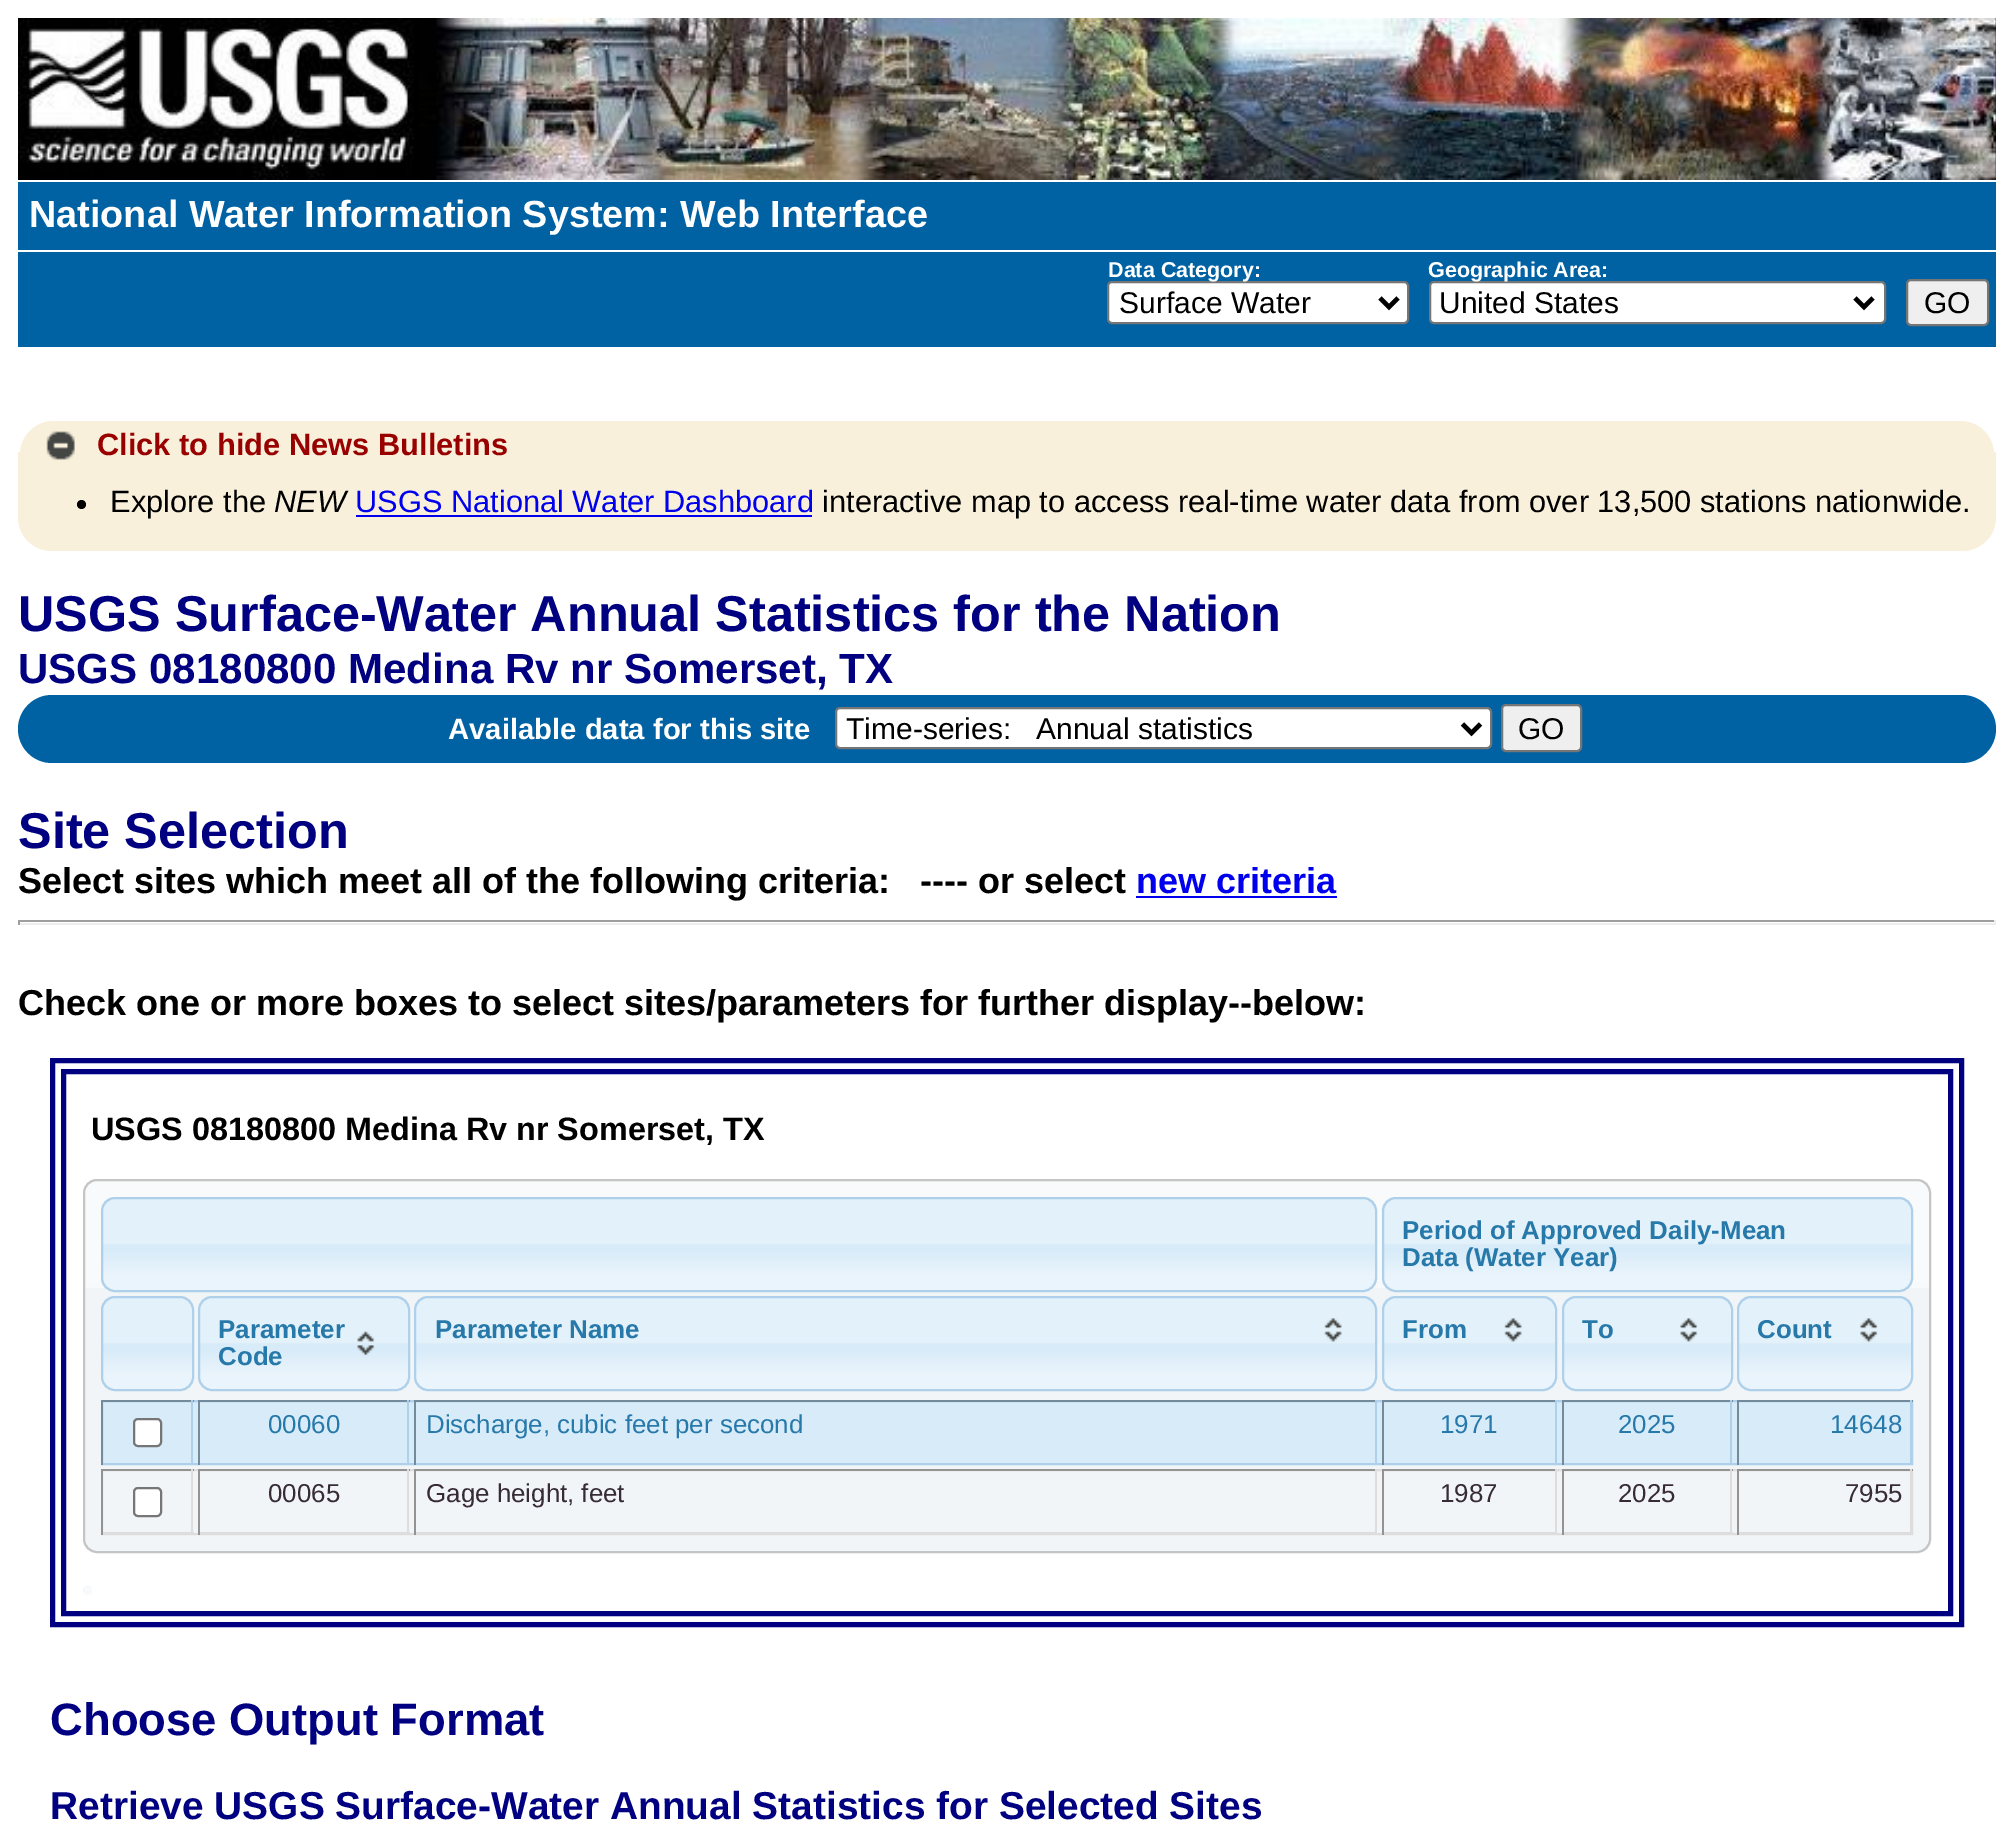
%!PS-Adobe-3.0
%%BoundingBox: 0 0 2013 1839
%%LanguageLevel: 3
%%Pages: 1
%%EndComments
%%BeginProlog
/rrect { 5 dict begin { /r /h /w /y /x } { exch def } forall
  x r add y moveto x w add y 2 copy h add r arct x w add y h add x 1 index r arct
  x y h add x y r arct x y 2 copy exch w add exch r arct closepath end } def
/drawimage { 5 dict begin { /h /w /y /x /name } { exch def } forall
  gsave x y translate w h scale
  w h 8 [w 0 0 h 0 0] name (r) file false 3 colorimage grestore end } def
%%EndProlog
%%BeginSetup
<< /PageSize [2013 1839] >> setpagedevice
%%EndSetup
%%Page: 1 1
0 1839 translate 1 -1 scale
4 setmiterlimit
1 setgray
0 0 2013 1839 rectfill
0 setgray
414 18 1582 162 rectfill
(images/1.raw) 419 18 1577 162 drawimage
(images/2.raw) 18 18 396 162 drawimage
0 0.38 0.639 setrgbcolor
18 182 1978 68 rectfill
18 252 1978 95 rectfill
1 setgray
1108 282 300 41 4 rrect gsave fill grestore
0.463 setgray
2 setlinewidth
stroke
0 setgray
4.5 setlinewidth
newpath 1380 298 moveto 1389 307 lineto 1398 298 lineto stroke
1 setgray
1430 282 455 41 4 rrect gsave fill grestore
0.463 setgray
2 setlinewidth
stroke
0 setgray
4.5 setlinewidth
newpath 1855 298 moveto 1864 307 lineto 1873 298 lineto stroke
0.937 setgray
1907 280 81 45 4 rrect gsave fill grestore
0.463 setgray
2 setlinewidth
stroke
0.973 0.941 0.859 setrgbcolor
newpath 18 452 moveto 1996 452 lineto 1996 517 lineto 1996 536 1981 551 1962 551 curveto 52 551 lineto 33 551 18 536 18 517 curveto closepath fill
newpath 54 421 moveto 1960 421 lineto 1979 421 1994 436 1994 455 curveto 1994 468 lineto 20 468 lineto 20 455 lineto 20 436 35 421 54 421 curveto closepath fill
(images/3.raw) 46 431 29 29 drawimage
0 setgray
newpath 81.5 504.5 4.5 0 360 arc closepath fill
0 0 0.933 setrgbcolor
356 515 456 2 rectfill
0 0.38 0.639 setrgbcolor
18 695 1978 68 34 rrect fill
1 setgray
836 708 655 40 4 rrect gsave fill grestore
0.463 setgray
stroke
0 setgray
4.5 setlinewidth
newpath 1462.5 724 moveto 1471.5 733 lineto 1480.5 724 lineto stroke
0.937 setgray
1502 705 79 46 4 rrect gsave fill grestore
0.463 setgray
2 setlinewidth
stroke
0 0 0.933 setrgbcolor
1136 896 201 2 rectfill
0.624 setgray
18 920 1978 2 rectfill
0.933 setgray
1994 920 2 5 rectfill
18 923 1978 2 rectfill
0.624 setgray
18 920 2 5 rectfill
0 0 0.502 setrgbcolor
5 setlinewidth
52.5 1060.5 1909 564 rectstroke
63.5 1071.5 1887 542 rectstroke
0.949 0.961 0.969 setrgbcolor
83 1179 1848 374 14 rrect fill
(images/4.raw) 83 1181 1847 107 drawimage
0.773 setgray
2 setlinewidth
84 1180 1846 372 13 rrect stroke
(images/5.raw) 101 1197 1276 95 drawimage
0.682 0.816 0.918 setrgbcolor
102 1198 1274 93 13 rrect stroke
(images/6.raw) 1381 1197 532 95 drawimage
1383 1198 529 93 13 rrect stroke
(images/7.raw) 101 1296 93 95 drawimage
102 1297 91 93 13 rrect stroke
(images/8.raw) 198 1296 212 95 drawimage
199 1297 210 93 13 rrect stroke
(images/9.raw) 357 1331 18 25 drawimage
(images/10.raw) 414 1296 963 95 drawimage
415 1297 961 93 13 rrect stroke
(images/11.raw) 1324 1318 18 24 drawimage
(images/12.raw) 1381 1296 176 95 drawimage
1383 1297 173 93 13 rrect stroke
(images/13.raw) 1504 1318 18 24 drawimage
(images/14.raw) 1561 1296 172 95 drawimage
1563 1297 169 93 13 rrect stroke
(images/15.raw) 1680 1318 18 24 drawimage
(images/16.raw) 1737 1296 176 95 drawimage
1738 1297 174 93 13 rrect stroke
(images/17.raw) 1860 1318 18 24 drawimage
0.843 0.922 0.976 setrgbcolor
103 1402 1807 61 rectfill
0.682 0.816 0.918 setrgbcolor
102 1401 1810 63 rectstroke
0.455 0.545 0.612 setrgbcolor
101 1400 93 2 rectfill
0.682 0.816 0.918 setrgbcolor
191 1400 2 65 rectfill
0.455 0.545 0.612 setrgbcolor
101 1400 2 65 rectfill
1 setgray
134 1419 27 27 4 rrect gsave fill grestore
0.463 setgray
stroke
0.455 0.545 0.612 setrgbcolor
198 1400 212 2 rectfill
0.682 0.816 0.918 setrgbcolor
407 1400 2 65 rectfill
0.455 0.545 0.612 setrgbcolor
198 1400 2 65 rectfill
414 1400 963 2 rectfill
0.682 0.816 0.918 setrgbcolor
1375 1400 2 65 rectfill
0.455 0.545 0.612 setrgbcolor
414 1400 2 65 rectfill
1382 1400 175 2 rectfill
0.682 0.816 0.918 setrgbcolor
1555 1400 2 65 rectfill
0.455 0.545 0.612 setrgbcolor
1382 1400 2 65 rectfill
1562 1400 171 2 rectfill
0.682 0.816 0.918 setrgbcolor
1730 1400 2 65 rectfill
0.455 0.545 0.612 setrgbcolor
1562 1400 2 65 rectfill
1737 1400 176 2 rectfill
0.682 0.816 0.918 setrgbcolor
1910 1400 2 65 rectfill
0.455 0.545 0.612 setrgbcolor
1737 1400 2 65 rectfill
0.867 setgray
102 1470 1810 64 rectstroke
0.576 setgray
101 1469 93 2 rectfill
0.867 setgray
191 1469 2 66 rectfill
101 1532 93 1 rectfill
0.576 setgray
101 1469 2 66 rectfill
1 setgray
134 1488 27 28 4 rrect gsave fill grestore
0.463 setgray
stroke
0.576 setgray
198 1469 212 2 rectfill
0.867 setgray
407 1469 2 66 rectfill
198 1532 212 1 rectfill
0.576 setgray
198 1469 2 66 rectfill
414 1469 963 2 rectfill
0.867 setgray
1375 1469 2 66 rectfill
414 1532 963 1 rectfill
0.576 setgray
414 1469 2 66 rectfill
1382 1469 175 2 rectfill
0.867 setgray
1555 1469 2 66 rectfill
1382 1532 175 1 rectfill
0.576 setgray
1382 1469 2 66 rectfill
1562 1469 171 2 rectfill
0.867 setgray
1730 1469 2 66 rectfill
1562 1532 171 1 rectfill
0.576 setgray
1562 1469 2 66 rectfill
1737 1469 176 2 rectfill
0.867 setgray
1910 1469 2 66 rectfill
1737 1532 176 1 rectfill
0.576 setgray
1737 1469 2 66 rectfill
0.949 0.961 0.969 setrgbcolor
newpath 87.5 1590.5 4.5 0 360 arc closepath fill
0.976 0.98 0.984 setrgbcolor
84 1587 8 8 rectfill
/LiberationSans-Bold [37.8 0 0 -37.8 0 0] selectfont
1 setgray
29 227 moveto (National Water Information System: Web Interface) show
/LiberationSans-Bold [21.5 0 0 -21.5 0 0] selectfont
1108 277 moveto (Data Category:) show
/LiberationSans-Regular [30 0 0 -30 0 0] selectfont
0 setgray
1119 313 moveto (Surface Water) show
/LiberationSans-Bold [21.5 0 0 -21.5 0 0] selectfont
1 setgray
1428 277 moveto (Geographic Area:) show
/LiberationSans-Regular [30 0 0 -30 0 0] selectfont
0 setgray
1439 313 moveto (United States) show
1924 313 moveto (GO) show
/LiberationSans-Bold [30.8 0 0 -30.8 0 0] selectfont
0.6 0 0 setrgbcolor
97 455 moveto (Click to hide) show
289 455 moveto (News Bulletins) show
/LiberationSans-Regular [30.8 0 0 -30.8 0 0] selectfont
0 setgray
110 512 moveto (Explore the) show
/LiberationSans-Italic [30.8 0 0 -30.8 0 0] selectfont
274 512 moveto (NEW) show
/LiberationSans-Regular [30.8 0 0 -30.8 0 0] selectfont
0 0 0.933 setrgbcolor
355 512 moveto (USGS National Water Dashboard) show
0 setgray
822 512 moveto (interactive map to access real-time water data from over 13,500 stations nationwide.) show
/LiberationSans-Bold [50.4 0 0 -50.4 0 0] selectfont
0 0 0.502 setrgbcolor
18 631 moveto (USGS Surface-Water Annual Statistics for the Nation) show
/LiberationSans-Bold [42.1 0 0 -42.1 0 0] selectfont
18 683 moveto (USGS 08180800 Medina Rv nr Somerset, TX) show
/LiberationSans-Bold [29.25 0 0 -29.25 0 0] selectfont
1 setgray
448 739 moveto (Available data for this site) show
/LiberationSans-Regular [30 0 0 -30 0 0] selectfont
0 setgray
846 739 moveto (Time-series:   Annual statistics) show
1518 739 moveto (GO) show
/LiberationSans-Bold [50.4 0 0 -50.4 0 0] selectfont
0 0 0.502 setrgbcolor
18 848 moveto (Site Selection) show
/LiberationSans-Bold [36 0 0 -36 0 0] selectfont
0 setgray
18 893 moveto (Select sites which meet all of the following criteria:   ---- or select) show
0 0 0.933 setrgbcolor
1136 893 moveto (new criteria) show
0 setgray
18 1015 moveto (Check one or more boxes to select sites/parameters for further display--below:) show
/LiberationSans-Bold [32.4 0 0 -32.4 0 0] selectfont
91 1140 moveto (USGS 08180800 Medina Rv nr Somerset, TX) show
/LiberationSans-Bold [25.9 0 0 -25.9 0 0] selectfont
0.153 0.475 0.667 setrgbcolor
1402 1239 moveto (Period of Approved Daily-Mean) show
1402 1266 moveto (Data \(Water Year\)) show
218 1338 moveto (Parameter) show
218 1365 moveto (Code) show
435 1338 moveto (Parameter Name) show
1402 1338 moveto (From) show
1582 1338 moveto (To) show
1757 1338 moveto (Count) show
/LiberationSans-Regular [25.9 0 0 -25.9 0 0] selectfont
268 1433 moveto (00060) show
426 1433 moveto (Discharge, cubic feet per second) show
1440 1433 moveto (1971) show
1618 1433 moveto (2025) show
1830 1433 moveto (14648) show
0.212 0.169 0.212 setrgbcolor
268 1502 moveto (00065) show
426 1502 moveto (Gage height, feet) show
1440 1502 moveto (1987) show
1618 1502 moveto (2025) show
1845 1502 moveto (7955) show
/LiberationSans-Bold [45.4 0 0 -45.4 0 0] selectfont
0 0 0.502 setrgbcolor
50 1735 moveto (Choose Output Format) show
/LiberationSans-Bold [38.9 0 0 -38.9 0 0] selectfont
50 1819 moveto (Retrieve USGS Surface-Water Annual Statistics) show
936 1819 moveto (for Selected Sites) show
showpage
%%EOF
